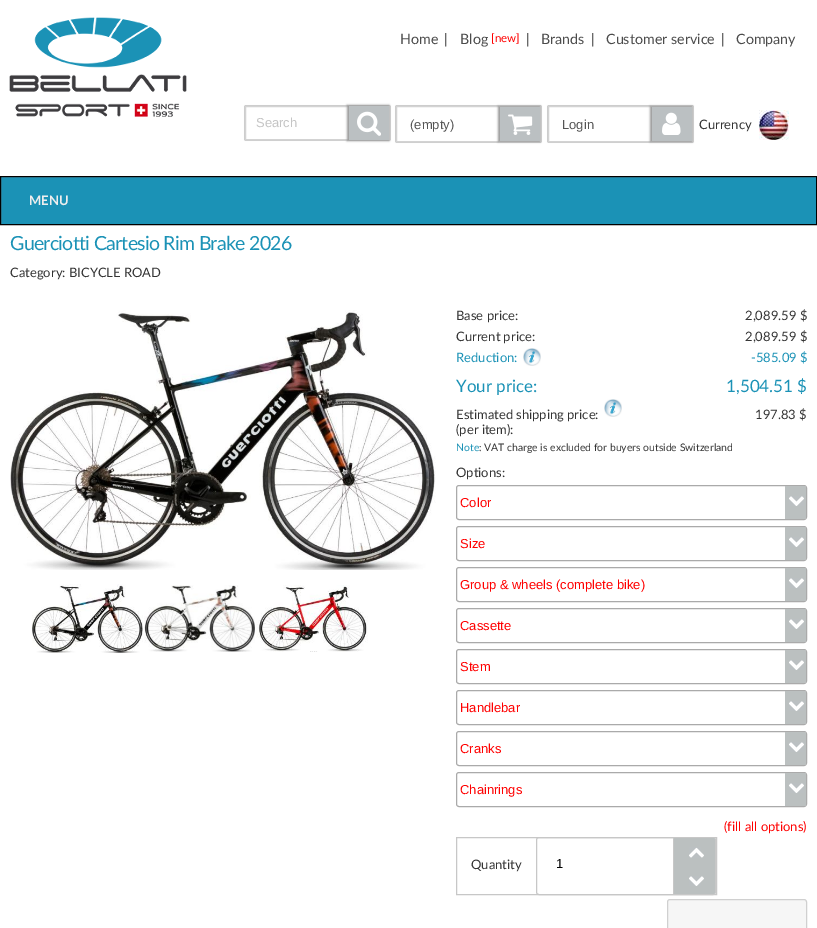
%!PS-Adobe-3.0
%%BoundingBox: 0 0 817 928
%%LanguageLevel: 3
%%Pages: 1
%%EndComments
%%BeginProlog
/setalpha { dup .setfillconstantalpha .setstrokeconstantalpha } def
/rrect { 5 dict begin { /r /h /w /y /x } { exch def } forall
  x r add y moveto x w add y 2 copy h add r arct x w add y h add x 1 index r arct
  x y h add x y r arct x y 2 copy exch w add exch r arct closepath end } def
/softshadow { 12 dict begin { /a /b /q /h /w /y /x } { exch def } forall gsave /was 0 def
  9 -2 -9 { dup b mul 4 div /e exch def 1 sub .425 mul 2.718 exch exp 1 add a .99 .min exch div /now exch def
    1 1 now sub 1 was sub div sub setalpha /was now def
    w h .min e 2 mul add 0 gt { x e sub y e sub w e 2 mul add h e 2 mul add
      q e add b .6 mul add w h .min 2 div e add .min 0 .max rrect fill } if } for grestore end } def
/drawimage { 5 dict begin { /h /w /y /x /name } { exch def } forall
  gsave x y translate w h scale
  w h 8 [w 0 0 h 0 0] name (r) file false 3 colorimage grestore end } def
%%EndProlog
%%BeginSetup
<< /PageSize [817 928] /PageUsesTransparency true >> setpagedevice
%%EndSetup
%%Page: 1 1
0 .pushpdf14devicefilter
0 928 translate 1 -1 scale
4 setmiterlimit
1 setgray
0 0 817 928 rectfill
(images/1.raw) 9 17 178 100 drawimage
gsave
newpath 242 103 moveto 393 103 lineto 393 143 lineto 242 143 lineto closepath 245 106 moveto 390 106 lineto 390 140 lineto 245 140 lineto closepath eoclip newpath
0.267 setgray
245 106 145 34 0 0.5 1 softshadow
grestore
0.827 setgray
245.5 106.5 144 33 rectstroke
0.6 setgray
347 105 42 36 0 1 1 softshadow
0.733 0.753 0.761 setrgbcolor
349 106 40 34 rectfill
(images/2.raw) 357 111 24 25 drawimage
gsave
newpath 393 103 moveto 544 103 lineto 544 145 lineto 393 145 lineto closepath 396 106 moveto 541 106 lineto 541 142 lineto 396 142 lineto closepath eoclip newpath
0.267 setgray
396 106 145 36 0 0.5 1 softshadow
grestore
0.827 setgray
396.5 106.5 144 35 rectstroke
0.6 setgray
498 106 42 36 0 1 1 softshadow
0.733 0.753 0.761 setrgbcolor
500 107 40 34 rectfill
(images/3.raw) 508 114 25 21 drawimage
gsave
newpath 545 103 moveto 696 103 lineto 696 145 lineto 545 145 lineto closepath 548 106 moveto 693 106 lineto 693 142 lineto 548 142 lineto closepath eoclip newpath
0.267 setgray
548 106 145 36 0 0.5 1 softshadow
grestore
0.827 setgray
548.5 106.5 144 35 rectstroke
0.6 setgray
650 106 42 36 0 1 1 softshadow
0.733 0.753 0.761 setrgbcolor
652 107 40 34 rectfill
(images/4.raw) 662 112 19 23 drawimage
(images/5.raw) 759 110 30 30 drawimage
0.106 0.573 0.714 setrgbcolor
2 178 814 46 rectfill
gsave
1 177 815 47 rectclip
0.196 0.616 0.741 setrgbcolor
newpath -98 78 moveto 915 78 lineto 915 323 lineto -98 323 lineto closepath 2 178 moveto 817 178 lineto 817 225 lineto 2 225 lineto closepath eofill
grestore
0 setgray
0.5 176.5 816 48 rectstroke
(images/6.raw) 10 310 426 260 drawimage
(images/7.raw) 32 584 111 69 drawimage
(images/8.raw) 144 585 111 67 drawimage
(images/9.raw) 256 585 112 67 drawimage
(images/10.raw) 523 348 18 18 drawimage
(images/10.raw) 604 399 18 18 drawimage
0.667 setgray
456.5 485.5 350 34 2.5 rrect stroke
0.733 0.753 0.753 setrgbcolor
newpath 785 486 moveto 804 486 lineto 805 486 806 487 806 488 curveto 806 517 lineto 806 518 805 519 804 519 curveto 785 519 lineto closepath fill
(images/11.raw) 789 496 15 10 drawimage
0.667 setgray
456.5 526.5 350 34 2.5 rrect stroke
0.733 0.753 0.753 setrgbcolor
newpath 785 527 moveto 804 527 lineto 805 527 806 528 806 529 curveto 806 558 lineto 806 559 805 560 804 560 curveto 785 560 lineto closepath fill
(images/11.raw) 789 537 15 10 drawimage
0.667 setgray
456.5 567.5 350 34 2.5 rrect stroke
0.733 0.753 0.753 setrgbcolor
newpath 785 568 moveto 804 568 lineto 805 568 806 569 806 570 curveto 806 599 lineto 806 600 805 601 804 601 curveto 785 601 lineto closepath fill
(images/11.raw) 789 578 15 10 drawimage
0.667 setgray
456.5 608.5 350 34 2.5 rrect stroke
0.733 0.753 0.753 setrgbcolor
newpath 785 609 moveto 804 609 lineto 805 609 806 610 806 611 curveto 806 640 lineto 806 641 805 642 804 642 curveto 785 642 lineto closepath fill
(images/11.raw) 789 619 15 10 drawimage
0.667 setgray
456.5 649.5 350 34 2.5 rrect stroke
0.733 0.753 0.753 setrgbcolor
newpath 785 650 moveto 804 650 lineto 805 650 806 651 806 652 curveto 806 681 lineto 806 682 805 683 804 683 curveto 785 683 lineto closepath fill
(images/11.raw) 789 660 15 10 drawimage
0.667 setgray
456.5 690.5 350 34 2.5 rrect stroke
0.733 0.753 0.753 setrgbcolor
newpath 785 691 moveto 804 691 lineto 805 691 806 692 806 693 curveto 806 722 lineto 806 723 805 724 804 724 curveto 785 724 lineto closepath fill
(images/11.raw) 789 701 15 10 drawimage
0.667 setgray
456.5 731.5 350 34 2.5 rrect stroke
0.733 0.753 0.753 setrgbcolor
newpath 785 732 moveto 804 732 lineto 805 732 806 733 806 734 curveto 806 763 lineto 806 764 805 765 804 765 curveto 785 765 lineto closepath fill
(images/11.raw) 789 742 15 10 drawimage
0.667 setgray
456.5 772.5 350 34 2.5 rrect stroke
0.733 0.753 0.753 setrgbcolor
newpath 785 773 moveto 804 773 lineto 805 773 806 774 806 775 curveto 806 804 lineto 806 805 805 806 804 806 curveto 785 806 lineto closepath fill
(images/11.raw) 789 783 15 10 drawimage
0.78 setgray
456.5 837.5 260 57 rectstroke
536.5 837.5 179 57 2.5 rrect stroke
673 838 1 56 rectfill
gsave
newpath 674 838 moveto 712 838 lineto 713.5 838 715 839.5 715 841 curveto 715 891 lineto 715 892.5 713.5 894 712 894 curveto 674 894 lineto closepath clip newpath
0.733 0.753 0.753 setrgbcolor
newpath 673 838 moveto 713 838 lineto 714.5 838 716 839.5 716 841 curveto 716 866 lineto 673 866 lineto closepath fill
grestore
(images/12.raw) 689 847 15 11 drawimage
gsave
newpath 674 838 moveto 712 838 lineto 713.5 838 715 839.5 715 841 curveto 715 891 lineto 715 892.5 713.5 894 712 894 curveto 674 894 lineto closepath clip newpath
0.733 0.753 0.753 setrgbcolor
newpath 673 866 moveto 716 866 lineto 716 891 lineto 716 892.5 714.5 894 713 894 curveto 673 894 lineto closepath fill
grestore
(images/13.raw) 689 876 15 10 drawimage
0.965 setgray
667.5 899.5 139 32 2.5 rrect gsave fill grestore
0.816 setgray
stroke
/Lato-Regular [14.25 0 0 -14.25 0 0] selectfont
0.298 setgray
400 44 moveto (Home) show
0.2 setgray
444 44 moveto (|) show
0.298 setgray
460 44 moveto (Blog) show
/Lato-Regular [11.5 0 0 -11.5 0 0] selectfont
1 0 0 setrgbcolor
491 42 moveto ([new]) show
/Lato-Regular [14.25 0 0 -14.25 0 0] selectfont
0.2 setgray
526 44 moveto (|) show
0.298 setgray
541 44 moveto (Brands) show
0.2 setgray
591 44 moveto (|) show
0.298 setgray
606 44 moveto (Customer service) show
0.2 setgray
721 44 moveto (|) show
0.298 setgray
736 44 moveto (Company) show
/LiberationSans-Regular [13 0 0 -13 0 0] selectfont
0.773 setgray
256 127 moveto (Search) show
0.333 setgray
410 129 moveto (\(empty\)) show
562 129 moveto (Login) show
/Lato-Regular [13 0 0 -13 0 0] selectfont
0.2 setgray
699 129 moveto (Currency) show
/Lato-Bold [13 0 0 -13 0 0] selectfont
0.933 setgray
29 205 moveto (MENU) show
/Lato-Regular [19.5 0 0 -19.5 0 0] selectfont
0.106 0.573 0.714 setrgbcolor
10 250 moveto -0.7 0 (Guerciotti Cartesio Rim Brake 2026) ashow
/Lato-Regular [13 0 0 -13 0 0] selectfont
0.2 setgray
10 277 moveto (Category: BICYCLE ROAD) show
456 320 moveto (Base price:) show
745 320 moveto (2,089.59 $) show
456 341 moveto (Current price:) show
745 341 moveto (2,089.59 $) show
0.106 0.573 0.714 setrgbcolor
456 362 moveto (Reduction:) show
751 362 moveto (-585.09 $) show
/Lato-Regular [17 0 0 -17 0 0] selectfont
456 392 moveto (Your price:) show
726 392 moveto (1,504.51 $) show
/Lato-Regular [13 0 0 -13 0 0] selectfont
0.2 setgray
456 419 moveto (Estimated shipping price:) show
755 419 moveto (197.83 $) show
456 434 moveto (\(per item\):) show
/Lato-Regular [10.4 0 0 -10.4 0 0] selectfont
0.106 0.573 0.714 setrgbcolor
456 451 moveto (Note) show
0.2 setgray
479 451 moveto (: VAT charge is excluded for buyers outside Switzerland) show
/Lato-Regular [13 0 0 -13 0 0] selectfont
456 477 moveto (Options:) show
/LiberationSans-Regular [13 0 0 -13 0 0] selectfont
1 0 0 setrgbcolor
460 507 moveto (Color) show
460 548 moveto (Size) show
460 589 moveto (Group & wheels \(complete bike\)) show
460 630 moveto (Cassette) show
460 671 moveto (Stem) show
460 712 moveto (Handlebar) show
460 753 moveto (Cranks) show
460 794 moveto (Chainrings) show
/Lato-Regular [13 0 0 -13 0 0] selectfont
724 831 moveto (\(fill all options\)) show
0.2 setgray
471 869 moveto (Quantity) show
/LiberationSans-Regular [13 0 0 -13 0 0] selectfont
0 setgray
556 868 moveto (1) show
.poppdf14devicefilter showpage
%%EOF
